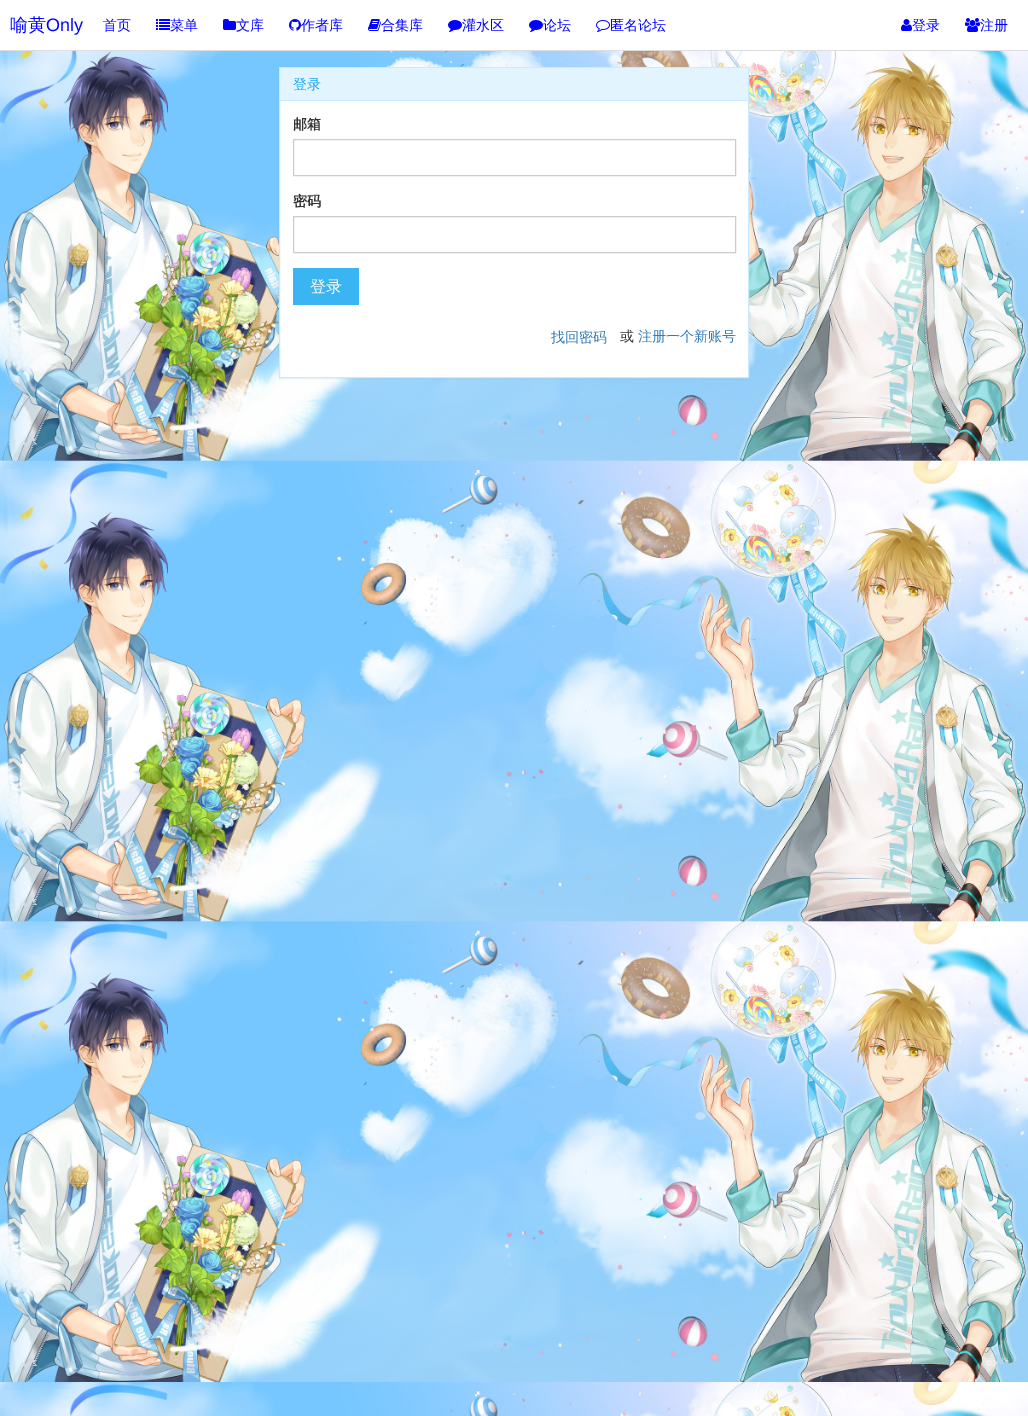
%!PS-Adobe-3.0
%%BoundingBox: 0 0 1028 1416
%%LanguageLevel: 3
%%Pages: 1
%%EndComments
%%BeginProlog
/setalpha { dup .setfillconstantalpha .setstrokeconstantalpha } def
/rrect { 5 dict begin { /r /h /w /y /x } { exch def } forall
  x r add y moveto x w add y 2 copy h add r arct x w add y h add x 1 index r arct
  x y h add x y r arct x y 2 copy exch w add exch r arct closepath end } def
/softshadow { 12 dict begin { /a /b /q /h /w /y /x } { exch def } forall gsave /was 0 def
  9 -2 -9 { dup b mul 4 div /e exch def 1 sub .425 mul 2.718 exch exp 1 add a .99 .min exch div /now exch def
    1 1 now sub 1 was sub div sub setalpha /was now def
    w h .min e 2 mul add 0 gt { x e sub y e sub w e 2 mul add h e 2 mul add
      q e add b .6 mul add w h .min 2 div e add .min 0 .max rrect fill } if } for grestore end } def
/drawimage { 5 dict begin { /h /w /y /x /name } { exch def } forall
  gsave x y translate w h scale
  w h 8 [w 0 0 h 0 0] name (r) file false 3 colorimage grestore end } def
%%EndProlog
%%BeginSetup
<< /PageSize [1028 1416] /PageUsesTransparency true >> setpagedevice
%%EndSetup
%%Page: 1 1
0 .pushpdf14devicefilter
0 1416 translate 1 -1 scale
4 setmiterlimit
1 setgray
0 0 1028 1416 rectfill
(images/1.raw) 0 51 1028 1365 drawimage
0.867 setgray
0 50 1028 1 rectfill
(images/2.raw) 156 19 14 11 drawimage
(images/3.raw) 223 19 13 11 drawimage
(images/4.raw) 289 19 12 12 drawimage
(images/5.raw) 368 19 13 12 drawimage
(images/6.raw) 448 20 14 12 drawimage
(images/6.raw) 529 20 14 12 drawimage
(images/7.raw) 596 20 14 12 drawimage
(images/8.raw) 901 19 11 12 drawimage
(images/9.raw) 965 18 15 14 drawimage
0 setgray
279 68 470 311 0 0.5 0.05 softshadow
1 setgray
280 101 468 276 rectfill
0.792 0.922 0.984 setrgbcolor
279.5 67.5 469 310 rectstroke
0.886 0.957 0.992 setrgbcolor
280 68 468 32 rectfill
0.792 0.922 0.984 setrgbcolor
280 100 468 1 rectfill
0.8 setgray
293.5 139.5 442 36 rectstroke
293.5 216.5 442 36 rectstroke
0.231 0.706 0.949 setrgbcolor
293 268 66 37 rectfill
/WenQuanYiZenHei-Medium [18 0 0 -18 0 0] selectfont
0 0 1 setrgbcolor
10 31 moveto (喻黄) show
/LiberationSans-Regular [18 0 0 -18 0 0] selectfont
46 31 moveto (Only) show
/WenQuanYiZenHei-Medium [14 0 0 -14 0 0] selectfont
103 30 moveto (首页) show
170 30 moveto (菜单) show
236 30 moveto (文库) show
301 30 moveto (作者库) show
381 30 moveto (合集库) show
462 30 moveto (灌水区) show
543 30 moveto (论坛) show
610 30 moveto (匿名论坛) show
912 30 moveto (登录) show
980 30 moveto (注册) show
0.078 0.651 0.937 setrgbcolor
293 89 moveto (登录) show
/WenQuanYiZenHei-Bold [14 0 0 -14 0 0] selectfont
0.2 setgray
293 129 moveto (邮箱) show
293 206 moveto (密码) show
/WenQuanYiZenHei-Medium [16 0 0 -16 0 0] selectfont
1 setgray
310 292 moveto (登录) show
/WenQuanYiZenHei-Medium [14 0 0 -14 0 0] selectfont
0.2 0.478 0.718 setrgbcolor
551 342 moveto (找回密码) show
0.2 setgray
620 341 moveto (或) show
0.2 0.478 0.718 setrgbcolor
638 341 moveto (注册一个新账号) show
.poppdf14devicefilter showpage
%%EOF
